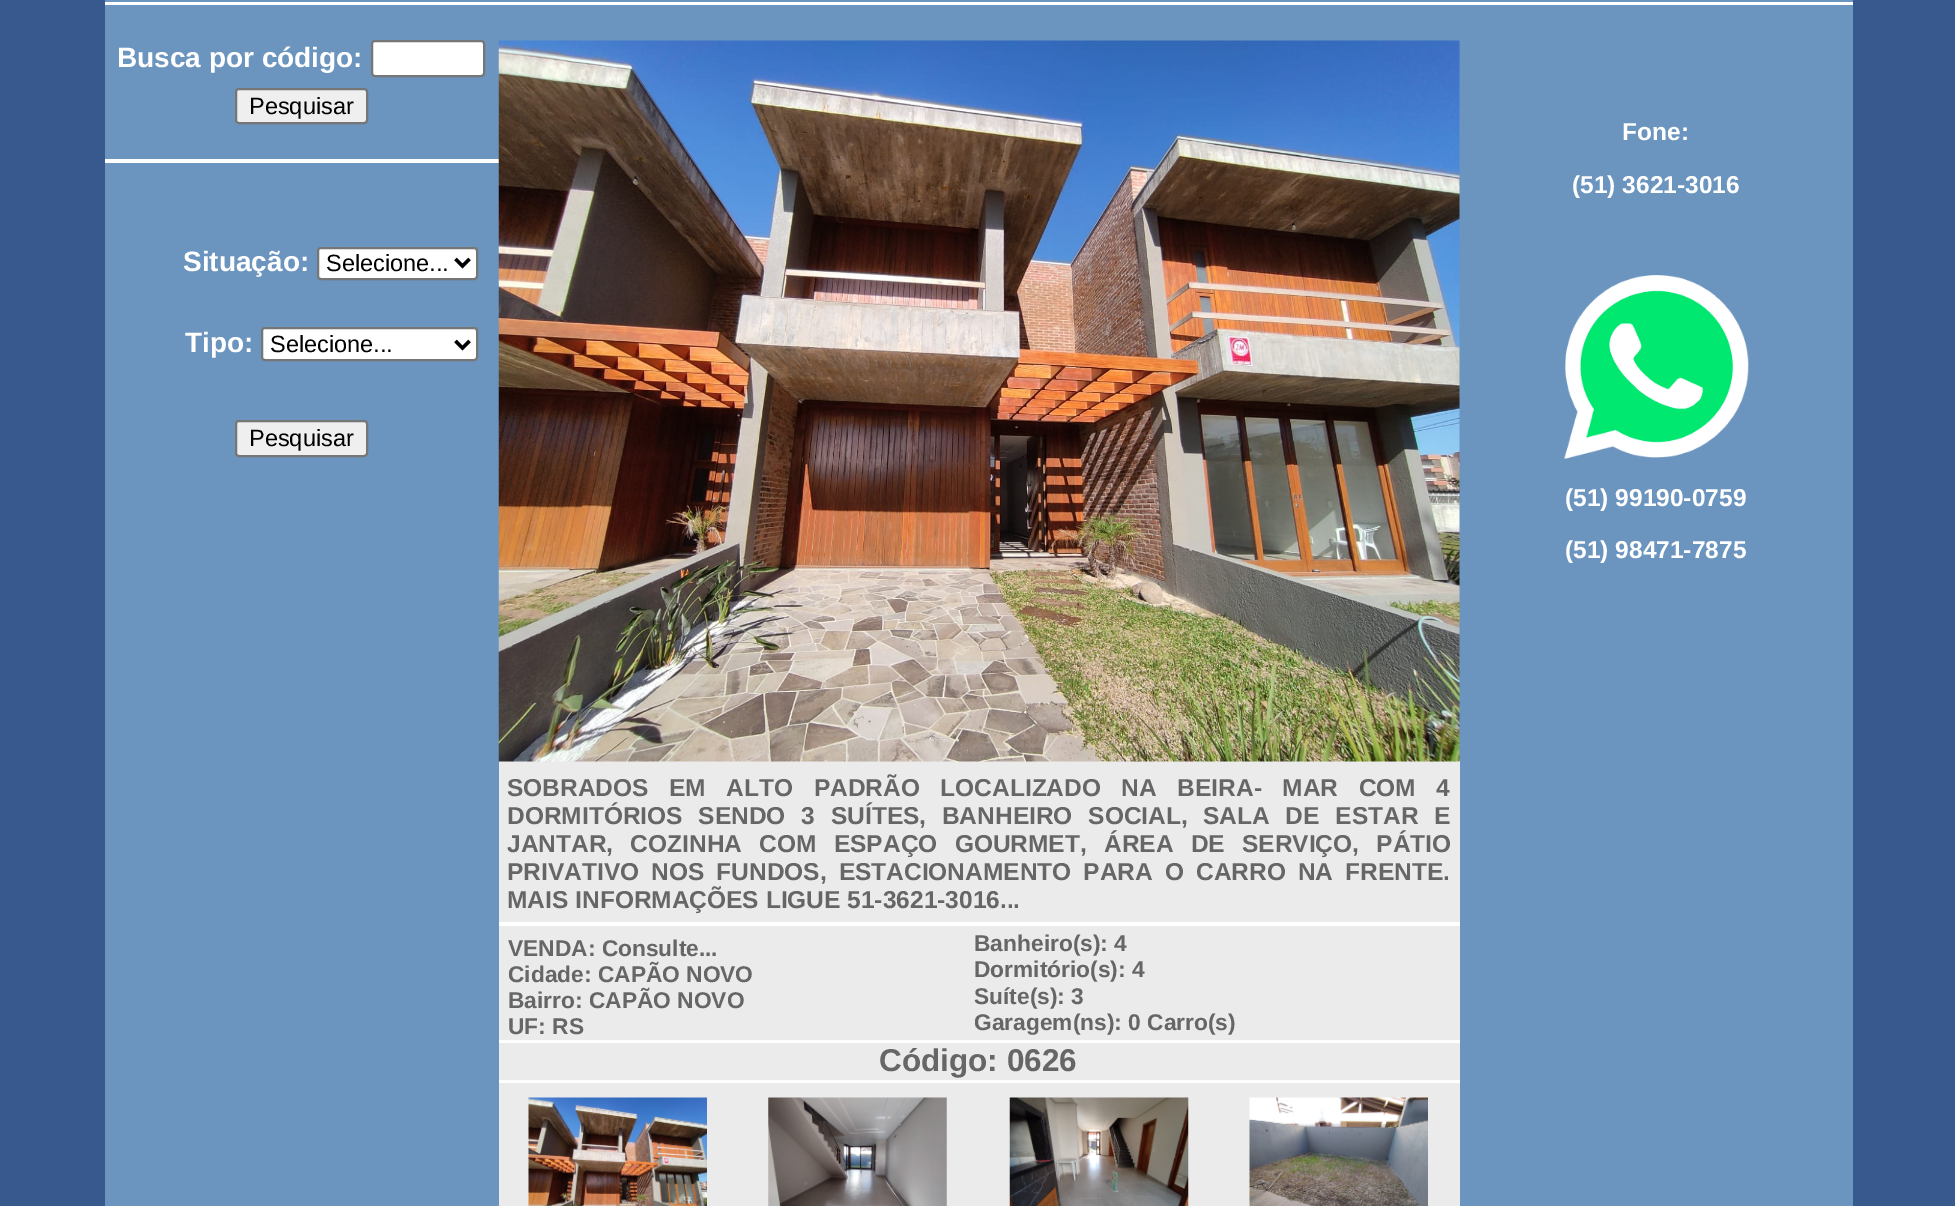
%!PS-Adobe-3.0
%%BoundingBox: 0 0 1955 1206
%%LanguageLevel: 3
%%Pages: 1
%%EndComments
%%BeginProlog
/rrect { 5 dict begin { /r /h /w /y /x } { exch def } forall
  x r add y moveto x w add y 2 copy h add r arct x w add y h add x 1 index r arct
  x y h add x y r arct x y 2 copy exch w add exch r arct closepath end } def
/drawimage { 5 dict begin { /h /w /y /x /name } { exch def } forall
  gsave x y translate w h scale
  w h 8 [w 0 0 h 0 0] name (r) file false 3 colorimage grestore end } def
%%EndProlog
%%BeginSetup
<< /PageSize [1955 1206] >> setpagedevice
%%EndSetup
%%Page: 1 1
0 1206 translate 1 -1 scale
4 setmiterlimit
0.22 0.349 0.557 setrgbcolor
0 0 1955 1206 rectfill
0.42 0.584 0.749 setrgbcolor
105 0 1748 2 rectfill
1 setgray
105 2 1748 3 rectfill
0.42 0.584 0.749 setrgbcolor
105 5 1748 35 rectfill
105 40 394 1166 rectfill
1 setgray
372 41 112 35 3 rrect gsave fill grestore
0.463 setgray
2 setlinewidth
stroke
0.937 setgray
236 89 131 34 3 rrect gsave fill grestore
0.463 setgray
stroke
1 setgray
105 159 394 4 rectfill
318 248 159 31 3 rrect gsave fill grestore
0.463 setgray
stroke
0 setgray
3.5 setlinewidth
newpath 455.5 259 moveto 462.5 266 lineto 469.5 259 lineto stroke
1 setgray
262 328 215 32 3 rrect gsave fill grestore
0.463 setgray
2 setlinewidth
stroke
0 setgray
3.5 setlinewidth
newpath 455.5 341 moveto 462.5 348 lineto 469.5 341 lineto stroke
0.937 setgray
236 421 131 35 3 rrect gsave fill grestore
0.463 setgray
2 setlinewidth
stroke
0.42 0.584 0.749 setrgbcolor
1460 40 393 1166 rectfill
(images/1.raw) 1564 275 185 184 drawimage
499 40 961 721 rectfill
0.922 setgray
499 761 961 161 rectfill
(images/2.raw) 498 40 962 722 drawimage
1 setgray
499 922 961 4 rectfill
0.922 setgray
499 926 961 114 rectfill
1 setgray
499 1040 961 3 rectfill
0.922 setgray
499 1043 961 37 rectfill
1 setgray
499 1080 961 3 rectfill
0.922 setgray
499 1083 961 14 rectfill
499 1097 961 109 rectfill
(images/3.raw) 528 1097 179 109 drawimage
(images/4.raw) 768 1097 179 109 drawimage
(images/5.raw) 1009 1097 180 109 drawimage
(images/6.raw) 1249 1097 179 109 drawimage
/LiberationSans-Bold [28 0 0 -28 0 0] selectfont
1 setgray
117 67 moveto (Busca por código:) show
/LiberationSans-Regular [23.5 0 0 -23.5 0 0] selectfont
0 setgray
249 114 moveto (Pesquisar) show
/LiberationSans-Bold [28 0 0 -28 0 0] selectfont
1 setgray
183 271 moveto (Situação:) show
/LiberationSans-Regular [23.5 0 0 -23.5 0 0] selectfont
0 setgray
326 271 moveto (Selecione...) show
/LiberationSans-Bold [28 0 0 -28 0 0] selectfont
1 setgray
185 352 moveto (Tipo:) show
/LiberationSans-Regular [23.5 0 0 -23.5 0 0] selectfont
0 setgray
270 352 moveto (Selecione...) show
249 446 moveto (Pesquisar) show
/LiberationSans-Bold [24.5 0 0 -24.5 0 0] selectfont
1 setgray
1622 140 moveto (Fone:) show
1572 193 moveto (\(51\) 3621-3016) show
1565 506 moveto (\(51\) 99190-0759) show
1565 558 moveto (\(51\) 98471-7875) show
0.4 setgray
507 796 moveto 13.75 0 32 (SOBRADOS EM ALTO PADRÃO LOCALIZADO NA BEIRA- MAR COM 4) widthshow
507 824 moveto 9 0 32 (DORMITÓRIOS SENDO 3 SUÍTES, BANHEIRO SOCIAL,) widthshow
1203 824 moveto 9 0 32 (SALA DE ESTAR E) widthshow
507 852 moveto 10.5 0 32 (JANTAR, COZINHA COM ESPAÇO GOURMET, ÁREA DE SERVIÇO, PÁTIO) widthshow
507 880 moveto 5.25 0 32 (PRIVATIVO NOS FUNDOS, ESTACIONAMENTO PARA O CARRO NA FRENTE.) widthshow
507 908 moveto (MAIS INFORMAÇÕES LIGUE 51-3621-3016...) show
/LiberationSans-Bold [22.75 0 0 -22.75 0 0] selectfont
508 956 moveto (VENDA: Consulte...) show
508 982 moveto (Cidade: CAPÃO NOVO) show
508 1008 moveto (Bairro: CAPÃO NOVO) show
508 1034 moveto (UF: RS) show
974 951 moveto (Banheiro\(s\): 4) show
974 977 moveto (Dormitório\(s\): 4) show
974 1004 moveto (Suíte\(s\): 3) show
974 1030 moveto (Garagem\(ns\): 0 Carro\(s\)) show
/LiberationSans-Bold [31.5 0 0 -31.5 0 0] selectfont
879 1071 moveto (Código: 0626) show
showpage
%%EOF
